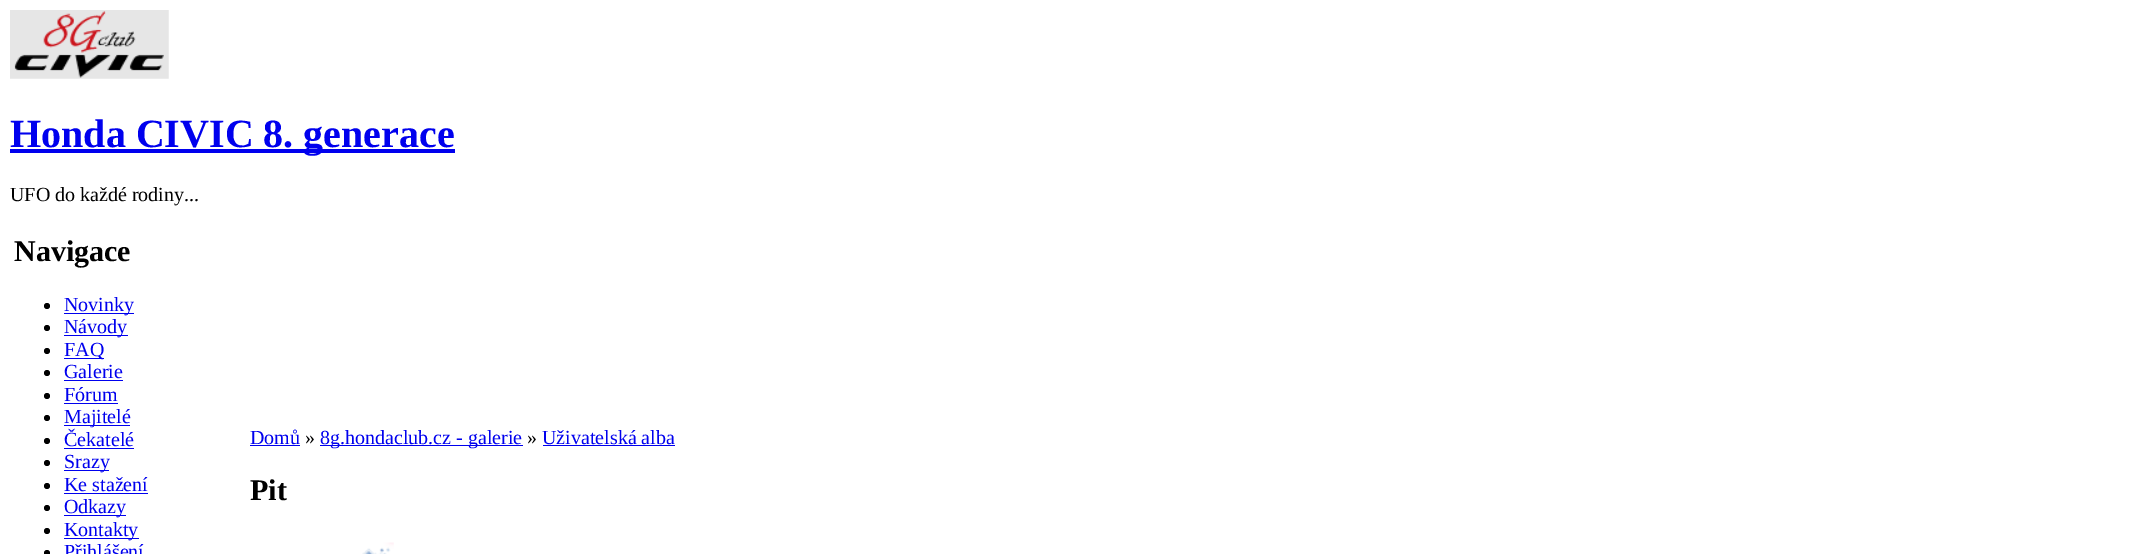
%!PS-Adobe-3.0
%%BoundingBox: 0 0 2142 554
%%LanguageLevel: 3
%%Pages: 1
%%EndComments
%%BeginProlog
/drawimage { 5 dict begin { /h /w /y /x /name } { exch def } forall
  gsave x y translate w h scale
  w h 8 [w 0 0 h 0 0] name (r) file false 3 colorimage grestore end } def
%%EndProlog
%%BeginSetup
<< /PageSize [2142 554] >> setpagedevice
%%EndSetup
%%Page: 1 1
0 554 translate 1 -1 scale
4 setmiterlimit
1 setgray
0 0 2142 554 rectfill
(images/1.raw) 10 10 159 69 drawimage
0 0 0.933 setrgbcolor
10 149 445 4 rectfill
0 setgray
newpath 47 306 3 0 360 arc closepath fill
0 0 0.933 setrgbcolor
64 313 70 1 rectfill
0 setgray
newpath 47 328 3 0 360 arc closepath fill
0 0 0.933 setrgbcolor
64 335 64 1 rectfill
0 setgray
newpath 47 351 3 0 360 arc closepath fill
0 0 0.933 setrgbcolor
64 358 40 1 rectfill
0 setgray
newpath 47 373 3 0 360 arc closepath fill
0 0 0.933 setrgbcolor
64 380 59 1 rectfill
0 setgray
newpath 47 396 3 0 360 arc closepath fill
0 0 0.933 setrgbcolor
64 403 54 1 rectfill
0 setgray
newpath 47 418 3 0 360 arc closepath fill
0 0 0.933 setrgbcolor
64 425 66 1 rectfill
0 setgray
newpath 47 441 3 0 360 arc closepath fill
0 0 0.933 setrgbcolor
64 448 70 1 rectfill
0 setgray
newpath 47 463 3 0 360 arc closepath fill
0 0 0.933 setrgbcolor
64 470 45 1 rectfill
0 setgray
newpath 47 486 3 0 360 arc closepath fill
0 0 0.933 setrgbcolor
64 493 84 1 rectfill
0 setgray
newpath 47 508 3 0 360 arc closepath fill
0 0 0.933 setrgbcolor
64 515 62 1 rectfill
0 setgray
newpath 47 531 3 0 360 arc closepath fill
0 0 0.933 setrgbcolor
64 538 75 1 rectfill
0 setgray
newpath 47 553 3 0 360 arc closepath fill
0 0 0.933 setrgbcolor
250 445 50 1 rectfill
320 445 203 1 rectfill
543 445 132 1 rectfill
(images/2.raw) 362 542 32 12 drawimage
/LiberationSerif-Bold [40 0 0 -40 0 0] selectfont
10 147 moveto (Honda CIVIC 8. generace) show
/LiberationSerif-Regular [20 0 0 -20 0 0] selectfont
0 setgray
10 201 moveto (UFO do každé rodiny...) show
/LiberationSerif-Bold [30 0 0 -30 0 0] selectfont
14 261 moveto (Navigace) show
/LiberationSerif-Regular [20 0 0 -20 0 0] selectfont
0 0 0.933 setrgbcolor
64 311 moveto (Novinky) show
64 333 moveto (Návody) show
64 356 moveto (FAQ) show
64 378 moveto (Galerie) show
64 401 moveto (Fórum) show
64 423 moveto (Majitelé) show
64 446 moveto (Čekatelé) show
64 468 moveto (Srazy) show
64 491 moveto (Ke stažení) show
64 513 moveto (Odkazy) show
64 536 moveto (Kontakty) show
64 558 moveto (Přihlášení) show
250 444 moveto (Domů) show
0 setgray
305 444 moveto (») show
0 0 0.933 setrgbcolor
320 444 moveto (8g.hondaclub.cz - galerie) show
0 setgray
527 444 moveto (») show
0 0 0.933 setrgbcolor
542 444 moveto (Uživatelská alba) show
/LiberationSerif-Bold [30 0 0 -30 0 0] selectfont
0 setgray
250 500 moveto (Pit) show
showpage
%%EOF
